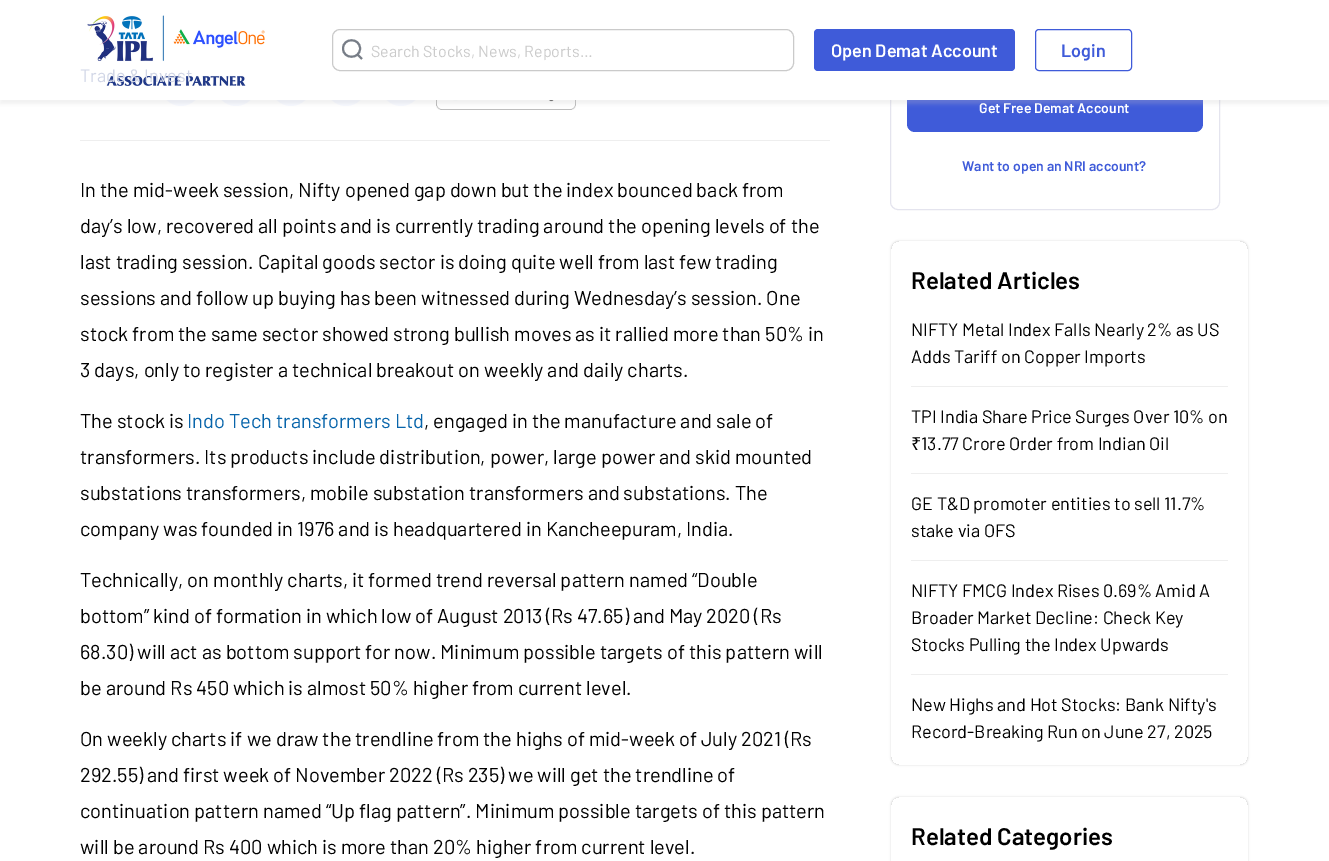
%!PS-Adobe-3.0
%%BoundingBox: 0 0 1329 861
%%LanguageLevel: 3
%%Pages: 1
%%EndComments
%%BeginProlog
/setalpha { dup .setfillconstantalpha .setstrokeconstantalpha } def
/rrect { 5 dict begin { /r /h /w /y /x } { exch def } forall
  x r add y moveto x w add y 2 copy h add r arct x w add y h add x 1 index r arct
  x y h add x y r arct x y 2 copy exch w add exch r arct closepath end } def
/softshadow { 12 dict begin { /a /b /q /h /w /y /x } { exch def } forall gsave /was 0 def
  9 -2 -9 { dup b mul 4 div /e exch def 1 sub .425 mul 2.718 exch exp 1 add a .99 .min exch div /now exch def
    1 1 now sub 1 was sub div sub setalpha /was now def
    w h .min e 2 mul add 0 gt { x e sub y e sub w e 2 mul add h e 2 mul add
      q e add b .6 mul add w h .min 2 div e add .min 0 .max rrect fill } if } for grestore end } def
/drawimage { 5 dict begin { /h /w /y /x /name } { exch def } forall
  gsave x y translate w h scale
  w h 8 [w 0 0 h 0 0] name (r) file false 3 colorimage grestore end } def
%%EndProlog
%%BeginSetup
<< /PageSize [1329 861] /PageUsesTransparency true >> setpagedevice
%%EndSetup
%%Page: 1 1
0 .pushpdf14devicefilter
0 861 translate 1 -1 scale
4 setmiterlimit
1 setgray
0 0 1329 861 rectfill
0.969 0.976 1 setrgbcolor
newpath 181 86 20 0 360 arc closepath fill
newpath 236 86 20 0 360 arc closepath fill
newpath 291 86 20 0 360 arc closepath fill
newpath 346 86 20 0 360 arc closepath fill
newpath 401 86 20 0 360 arc closepath fill
(images/2.raw) 436 100 140 10 drawimage
0.894 0.894 0.933 setrgbcolor
890.5 -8.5 329 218 7.5 rrect stroke
0.247 0.357 0.851 setrgbcolor
907 83 296 49 8 rrect fill
0.773 setgray
0 4 1329 100 0 2 0.25 softshadow
1 setgray
0 0 1329 100 rectfill
(images/1.raw) 87 15 178 71 drawimage
0.792 setgray
332.5 29.5 461 41 7.5 rrect stroke
0.467 0.49 0.529 setrgbcolor
2 setlinewidth
1 setlinecap
newpath 362 59 moveto 357.5 54.5 lineto closepath 360 48.5 moveto 360 59.5 343 59.5 343 48.5 curveto 343 37.5 360 37.5 360 48.5 curveto closepath stroke
0.247 0.357 0.851 setrgbcolor
814 29 201 42 4 rrect fill
1 setlinewidth
0 setlinecap
1035.5 29.5 96 41 3.5 rrect stroke
0.933 setgray
80 140 750 1 rectfill
gsave
newpath 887 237 moveto 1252 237 lineto 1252 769 lineto 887 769 lineto closepath 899 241 moveto 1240 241 lineto 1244.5 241 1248 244.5 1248 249 curveto 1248 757 lineto 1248 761.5 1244.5 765 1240 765 curveto 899 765 lineto 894.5 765 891 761.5 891 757 curveto 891 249 lineto 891 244.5 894.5 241 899 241 curveto closepath eoclip newpath
0.412 setgray
891 241 357 524 8 1 0.25 softshadow
grestore
911 386 317 1 rectfill
911 473 317 1 rectfill
911 560 317 1 rectfill
911 674 317 1 rectfill
gsave
newpath 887 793 moveto 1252 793 lineto 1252 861 lineto 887 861 lineto closepath 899 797 moveto 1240 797 lineto 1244.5 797 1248 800.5 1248 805 curveto 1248 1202 lineto 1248 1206.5 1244.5 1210 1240 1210 curveto 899 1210 lineto 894.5 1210 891 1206.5 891 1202 curveto 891 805 lineto 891 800.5 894.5 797 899 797 curveto closepath eoclip newpath
0.412 setgray
891 797 357 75 8 1 0.25 softshadow
grestore
/Barlow-Regular [16 0 0 -16 0 0] selectfont
0.792 setgray
371 57 moveto (Search Stocks, News, Reports…) show
/Barlow-SemiBold [18 0 0 -18 0 0] selectfont
1 setgray
831 57 moveto (Open Demat Account) show
0.247 0.357 0.851 setrgbcolor
1061 57 moveto (Login) show
/Barlow-Regular [18 0 0 -18 0 0] selectfont
0.82 0.839 0.902 setrgbcolor
80 82 moveto (Trade & Invest) show
/Barlow-Regular [20 0 0 -20 0 0] selectfont
0 setgray
80 197 moveto (In the mid-week session, Nifty opened gap down but the index bounced back from) show
80 233 moveto (day’s low, recovered all points and is currently trading around the opening levels of the) show
80 269 moveto (last trading session. Capital goods sector is doing quite well from last few trading) show
80 305 moveto (sessions and follow up buying has been witnessed during Wednesday’s session. One) show
80 341 moveto (stock from the same sector showed strong bullish moves as it rallied more than 50% in) show
80 377 moveto (3 days, only to register a technical breakout on weekly and daily charts.) show
80 428 moveto (The stock is) show
0.031 0.396 0.671 setrgbcolor
187 428 moveto (Indo Tech transformers Ltd) show
0 setgray
424 428 moveto (, engaged in the manufacture and sale of) show
80 464 moveto (transformers. Its products include distribution, power, large power and skid mounted) show
80 500 moveto (substations transformers, mobile substation transformers and substations. The) show
80 536 moveto (company was founded in 1976 and is headquartered in Kancheepuram, India.) show
80 587 moveto (Technically, on monthly charts, it formed trend reversal pattern named “Double) show
80 623 moveto (bottom” kind of formation in which low of August 2013 \(Rs 47.65\) and May 2020 \(Rs) show
80 659 moveto (68.30\) will act as bottom support for now. Minimum possible targets of this pattern will) show
80 695 moveto (be around Rs 450 which is almost 50% higher from current level.) show
80 746 moveto (On weekly charts if we draw the trendline from the highs of mid-week of July 2021 \(Rs) show
80 782 moveto (292.55\) and first week of November 2022 \(Rs 235\) we will get the trendline of) show
80 818 moveto (continuation pattern named “Up flag pattern”. Minimum possible targets of this pattern) show
80 854 moveto (will be around Rs 400 which is more than 20% higher from current level.) show
/Barlow-SemiBold [14 0 0 -14 0 0] selectfont
1 setgray
979 113 moveto (Get Free Demat Account) show
0.247 0.357 0.851 setrgbcolor
962 171 moveto (Want to open an NRI account?) show
/Barlow-SemiBold [24 0 0 -24 0 0] selectfont
0 setgray
911 289 moveto (Related Articles) show
/Barlow-Regular [18 0 0 -18 0 0] selectfont
911 336 moveto (NIFTY Metal Index Falls Nearly 2% as US) show
911 363 moveto (Adds Tariff on Copper Imports) show
911 423 moveto (TPI India Share Price Surges Over 10% on) show
/NotoSans-Regular [18 0 0 -18 0 0] selectfont
911 450 moveto (₹) show
/Barlow-Regular [18 0 0 -18 0 0] selectfont
921 450 moveto (13.77 Crore Order from Indian Oil) show
911 510 moveto (GE T&D promoter entities to sell 11.7%) show
911 537 moveto (stake via OFS) show
911 597 moveto (NIFTY FMCG Index Rises 0.69% Amid A) show
911 624 moveto (Broader Market Decline: Check Key) show
911 651 moveto (Stocks Pulling the Index Upwards) show
911 711 moveto (New Highs and Hot Stocks: Bank Nifty's) show
911 738 moveto (Record-Breaking Run on June 27, 2025) show
/Barlow-SemiBold [24 0 0 -24 0 0] selectfont
911 845 moveto (Related Categories) show
.poppdf14devicefilter showpage
%%EOF
